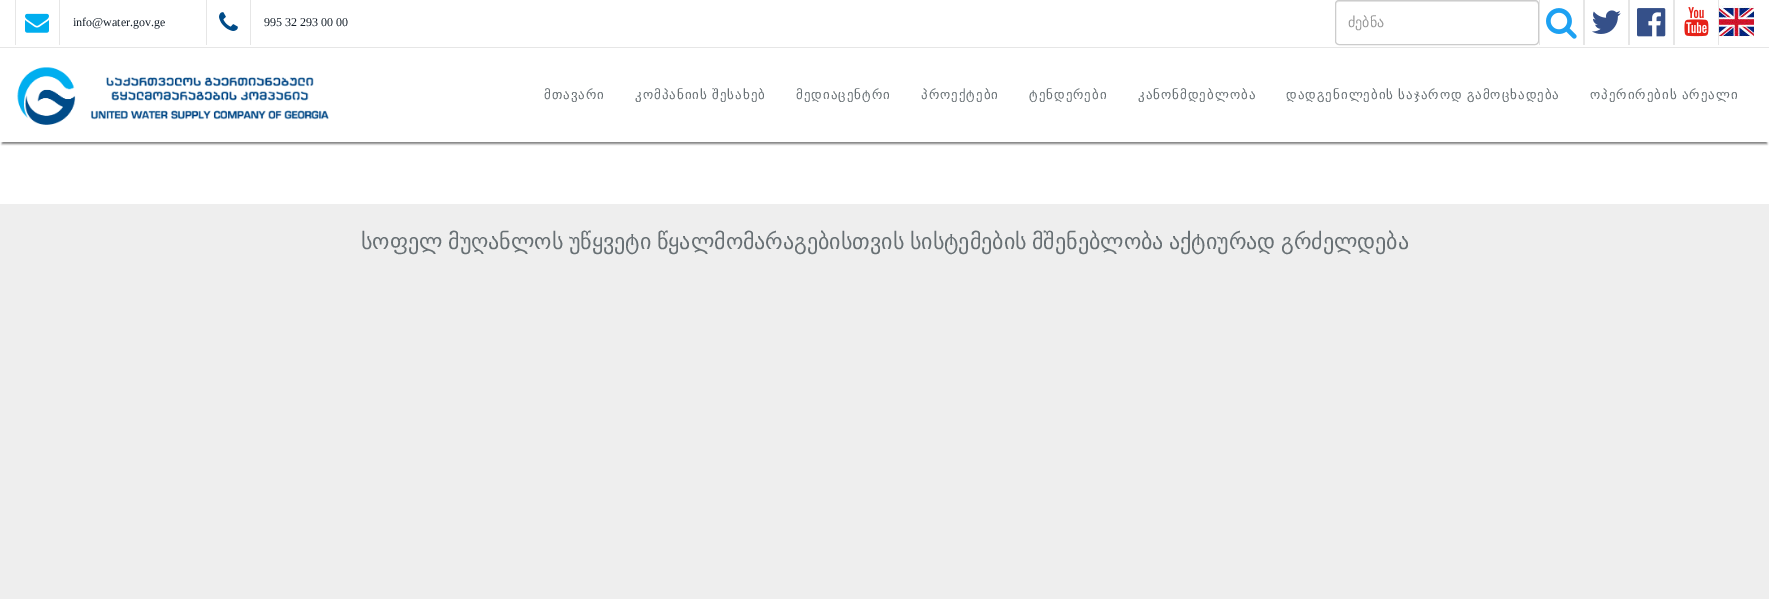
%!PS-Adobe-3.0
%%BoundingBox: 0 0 1769 599
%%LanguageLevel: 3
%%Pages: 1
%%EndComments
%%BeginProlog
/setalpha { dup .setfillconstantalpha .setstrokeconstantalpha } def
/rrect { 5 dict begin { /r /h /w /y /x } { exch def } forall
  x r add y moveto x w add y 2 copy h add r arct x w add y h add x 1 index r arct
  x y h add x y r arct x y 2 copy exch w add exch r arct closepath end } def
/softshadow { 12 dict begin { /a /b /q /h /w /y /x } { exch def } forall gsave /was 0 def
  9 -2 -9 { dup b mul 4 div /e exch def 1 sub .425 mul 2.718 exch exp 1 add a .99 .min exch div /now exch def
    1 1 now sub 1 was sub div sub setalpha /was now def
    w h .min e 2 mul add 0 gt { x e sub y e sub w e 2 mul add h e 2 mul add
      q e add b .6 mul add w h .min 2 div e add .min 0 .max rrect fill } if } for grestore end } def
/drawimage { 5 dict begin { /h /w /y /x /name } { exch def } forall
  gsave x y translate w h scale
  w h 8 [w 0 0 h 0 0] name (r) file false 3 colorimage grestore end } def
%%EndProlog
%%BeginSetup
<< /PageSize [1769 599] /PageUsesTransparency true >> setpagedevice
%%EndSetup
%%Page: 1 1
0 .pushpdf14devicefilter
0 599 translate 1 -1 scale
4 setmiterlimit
1 setgray
0 0 1769 599 rectfill
0.902 setgray
0 47 1769 1 rectfill
59 0 1 45 rectfill
15 0 1 45 rectfill
(images/1.raw) 25 13 24 20 drawimage
250 0 1 45 rectfill
206 0 1 45 rectfill
(images/2.raw) 219 12 19 19 drawimage
0.925 setgray
newpath 1339 2 moveto 1535 2 lineto 1537 2 1538 3 1538 5 curveto 1538 3 1537 1 1535 1 curveto 1339 1 lineto 1337 1 1336 3 1336 5 curveto 1336 3 1337 2 1339 2 curveto closepath fill
0.8 setgray
1335.5 0.5 203 44 3.5 rrect stroke
0.902 setgray
1539 0 1 45 rectfill
(images/3.raw) 1546 8 31 31 drawimage
1583 0 2 45 rectfill
(images/4.raw) 1592 10 29 24 drawimage
1628 0 2 45 rectfill
(images/5.raw) 1637 8 29 29 drawimage
1718 0 1 45 rectfill
1673 0 2 45 rectfill
(images/6.raw) 1684 7 25 30 drawimage
(images/7.raw) 1719 5 35 32 drawimage
gsave
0 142 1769 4 rectclip
0.502 setgray
2 54 1765 90 0 1 1 softshadow
grestore
(images/8.raw) 17 67 312 58 drawimage
0.933 setgray
0 204 1769 395 rectfill
/LiberationSerif-Regular [12 0 0 -12 0 0] selectfont
0.09 0.129 0.173 setrgbcolor
73 26 moveto (info@water.gov.ge) show
264 26 moveto (995 32 293 00 00) show
/DejaVuSans-Regular [14 0 0 -14 0 0] selectfont
0.6 setgray
1348 27 moveto (ძებნა) show
/DejaVuSans-Regular [13 0 0 -13 0 0] selectfont
0.408 0.439 0.455 setrgbcolor
544 99 moveto 1 0 (მთავარი) ashow
635 99 moveto -1 0 32 1 0 (კომპანიის შესახებ) awidthshow
796 99 moveto 1 0 (მედიაცენტრი) ashow
921 99 moveto 1 0 (პროექტები) ashow
1029 99 moveto 1 0 (ტენდერები) ashow
1138 99 moveto 1 0 (კანონმდებლობა) ashow
1286 99 moveto -1 0 32 1 0 (დადგენილების საჯაროდ გამოცხადება) awidthshow
1590 99 moveto -1 0 32 1 0 (ოპერირების არეალი) awidthshow
/DejaVuSans-Regular [22 0 0 -22 0 0] selectfont
361 249 moveto -1.5 0 32 (სოფელ მუღანლოს უწყვეტი წყალმომარაგებისთვის სისტემების მშენებლობა აქტიურად გრძელდება) widthshow
.poppdf14devicefilter showpage
%%EOF
